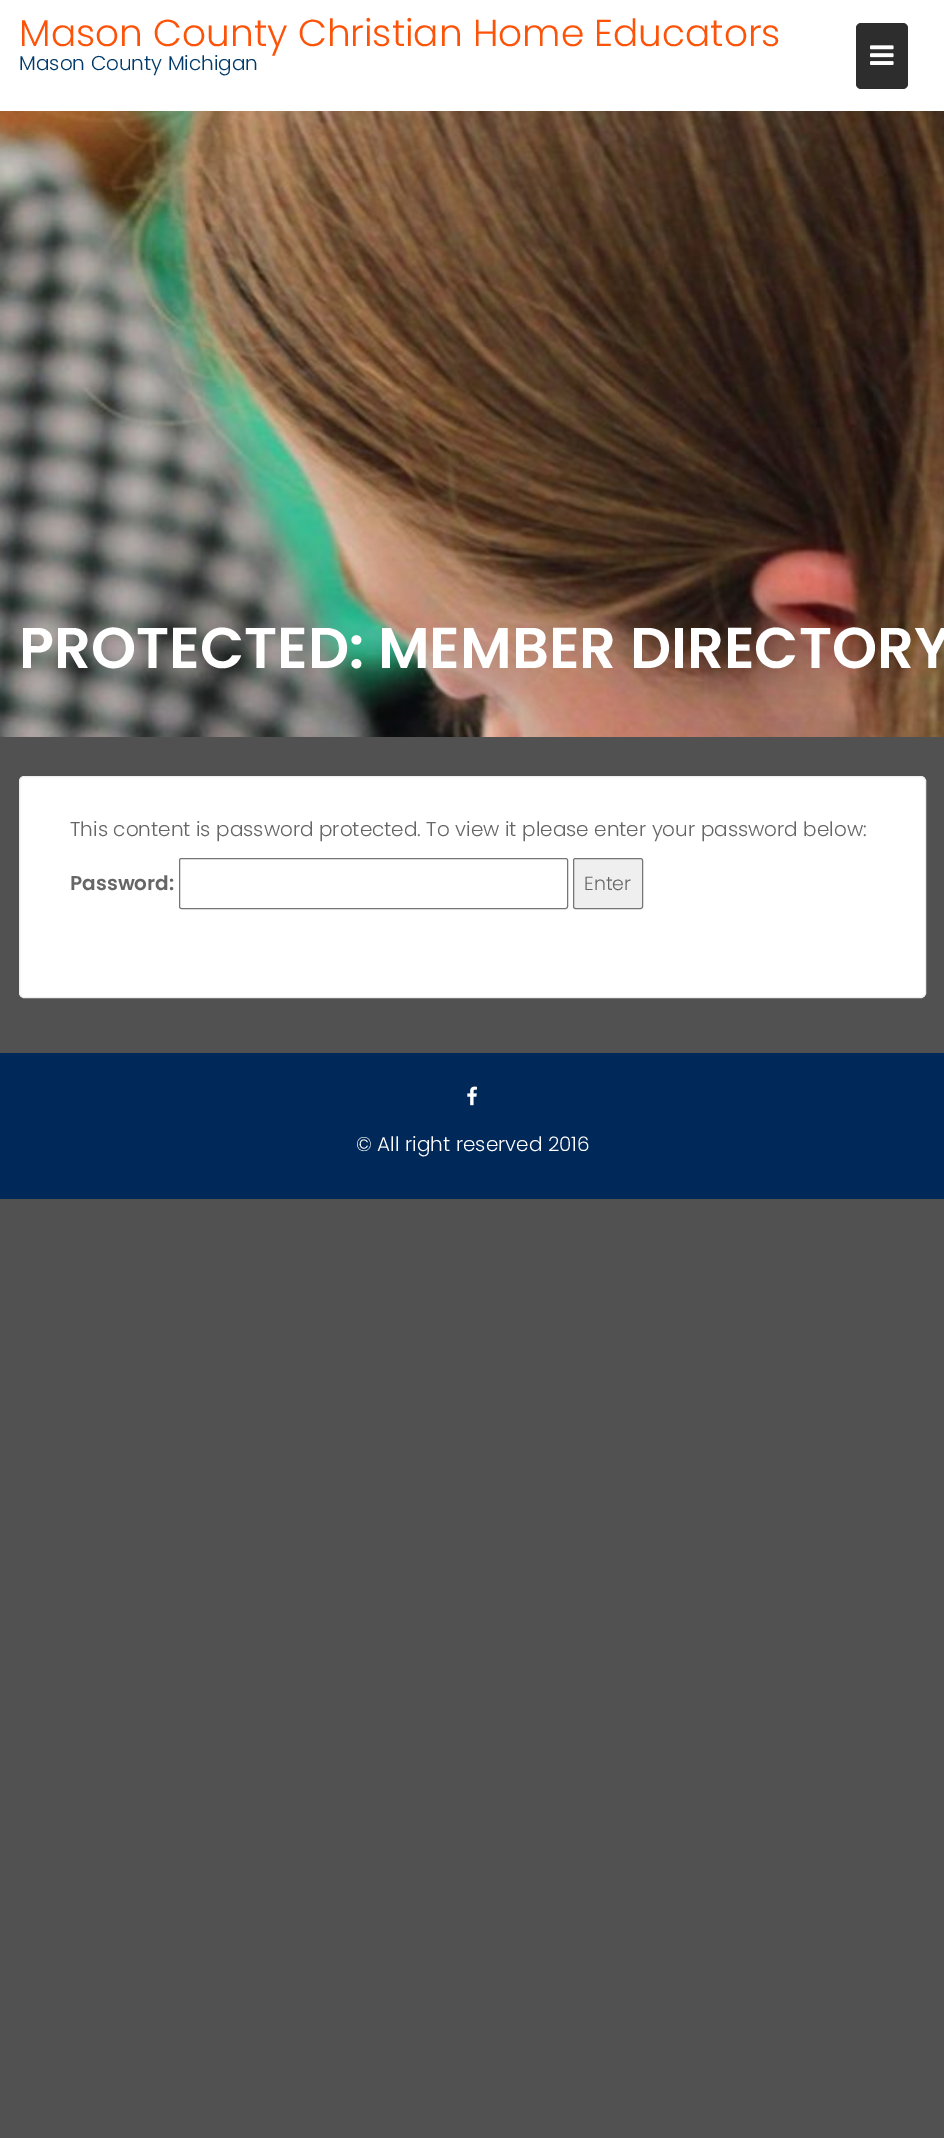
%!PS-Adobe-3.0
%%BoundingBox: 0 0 944 2138
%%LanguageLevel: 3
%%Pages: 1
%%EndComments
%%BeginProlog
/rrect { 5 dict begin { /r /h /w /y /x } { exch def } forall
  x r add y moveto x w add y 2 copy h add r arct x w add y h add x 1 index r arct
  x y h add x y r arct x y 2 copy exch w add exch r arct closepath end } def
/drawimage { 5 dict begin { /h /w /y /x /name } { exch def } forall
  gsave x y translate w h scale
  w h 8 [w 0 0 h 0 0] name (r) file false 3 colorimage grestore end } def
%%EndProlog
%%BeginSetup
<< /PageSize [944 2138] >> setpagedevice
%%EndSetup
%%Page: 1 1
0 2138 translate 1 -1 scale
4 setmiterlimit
0.318 setgray
0 0 944 2138 rectfill
1 setgray
0 0 944 111 rectfill
0.176 setgray
856 23 52 66 5 rrect fill
(images/1.raw) 870 45 24 20 drawimage
(images/2.raw) 0 111 944 626 drawimage
1 setgray
19.5 776.5 906 221 4.5 rrect gsave fill grestore
0.933 setgray
stroke
0.463 setgray
179.5 858.5 388 50 2 rrect stroke
0.937 setgray
573.5 858.5 69 50 2 rrect gsave fill grestore
0.463 setgray
stroke
0 0.157 0.345 setrgbcolor
0 1053 944 146 rectfill
(images/3.raw) 467 1086 10 20 drawimage
/Poppins-Light [37.5 0 0 -37.5 0 0] selectfont
0.992 0.325 0.031 setrgbcolor
19 46 moveto (Mason County Christian Home Educators) show
/Poppins-Light [20 0 0 -20 0 0] selectfont
0 0.227 0.416 setrgbcolor
19 70 moveto (Mason County Michigan) show
/Poppins-SemiBold [57.5 0 0 -57.5 0 0] selectfont
1 setgray
19 668 moveto (PROTECTED: MEMBER DIRECTORY) show
/Poppins-Light [20 0 0 -20 0 0] selectfont
0.4 setgray
70 836 moveto (This content is password protected. To view it please enter your password below:) show
/Poppins-SemiBold [20 0 0 -20 0 0] selectfont
70 890 moveto (Password:) show
/Poppins-Light [19 0 0 -19 0 0] selectfont
584 890 moveto (Enter) show
/Poppins-Light [20 0 0 -20 0 0] selectfont
1 setgray
356 1151 moveto (© All right reserved 2016) show
showpage
%%EOF
